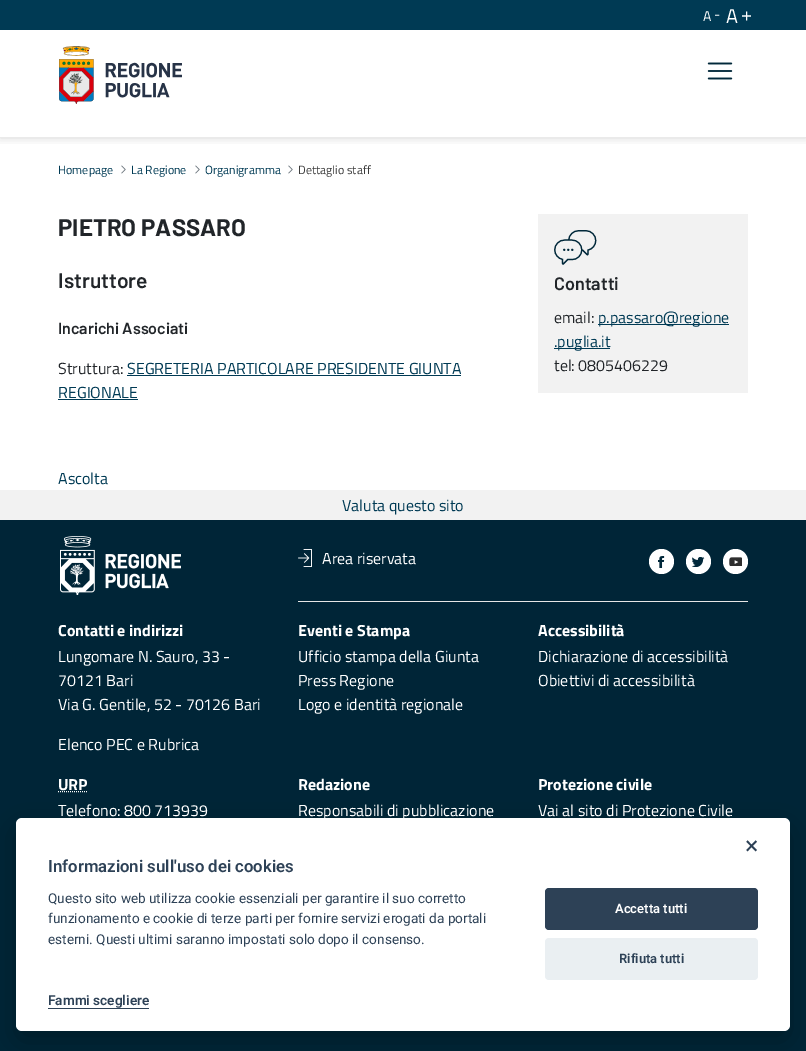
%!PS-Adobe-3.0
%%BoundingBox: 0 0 806 1051
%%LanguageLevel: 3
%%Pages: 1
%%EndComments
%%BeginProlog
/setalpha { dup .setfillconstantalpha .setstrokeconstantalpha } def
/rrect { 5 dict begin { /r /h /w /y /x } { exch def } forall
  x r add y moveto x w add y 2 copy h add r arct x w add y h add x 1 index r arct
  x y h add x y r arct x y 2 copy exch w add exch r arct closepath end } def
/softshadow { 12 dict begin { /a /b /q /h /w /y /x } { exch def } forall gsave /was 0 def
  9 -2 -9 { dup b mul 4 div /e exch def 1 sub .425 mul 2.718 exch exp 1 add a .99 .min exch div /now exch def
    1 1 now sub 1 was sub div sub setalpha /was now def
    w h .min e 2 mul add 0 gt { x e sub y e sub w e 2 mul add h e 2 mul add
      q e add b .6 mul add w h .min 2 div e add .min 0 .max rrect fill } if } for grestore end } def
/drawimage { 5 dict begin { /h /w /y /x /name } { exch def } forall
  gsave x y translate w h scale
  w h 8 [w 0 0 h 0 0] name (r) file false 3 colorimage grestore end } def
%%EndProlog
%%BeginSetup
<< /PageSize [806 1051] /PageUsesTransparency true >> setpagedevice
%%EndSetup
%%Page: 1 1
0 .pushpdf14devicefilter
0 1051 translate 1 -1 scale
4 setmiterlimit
1 setgray
0 0 806 1051 rectfill
gsave
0 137 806 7 rectclip
0 setgray
0 1 806 137 0 5 0.16 softshadow
grestore
0 0.227 0.329 setrgbcolor
0 0 806 30 rectfill
(images/1.raw) 59 46 123 58 drawimage
(images/2.raw) 707 62 26 18 drawimage
(images/3.raw) 121 165 5 9 drawimage
(images/3.raw) 195 165 5 9 drawimage
(images/3.raw) 288 165 5 9 drawimage
127 375 334 1 rectfill
58 399 80 1 rectfill
0.949 setgray
538 214 210 179 rectfill
(images/4.raw) 554 230 43 35 drawimage
0 0.227 0.329 setrgbcolor
598 324 131 1 rectfill
554 348 56 1 rectfill
0.949 setgray
0 490 806 30 rectfill
0 0.145 0.216 setrgbcolor
0 520 806 531 rectfill
(images/5.raw) 60 536 121 59 drawimage
(images/6.raw) 298 549 14 18 drawimage
1 setgray
newpath 661.5 561.5 12.5 0 360 arc closepath fill
(images/7.raw) 658 556 7 12 drawimage
newpath 698.5 561.5 12.5 0 360 arc closepath fill
(images/8.raw) 692 557 13 10 drawimage
newpath 735.5 561.5 12.5 0 360 arc closepath fill
(images/9.raw) 729 557 13 9 drawimage
0.902 setgray
298 601 450 1 rectfill
1 setgray
[1 1] 0 setdash
newpath 58 791.5 moveto 88 791.5 lineto stroke
0.008 0.008 0.012 setrgbcolor
16 828 774 213 6 15 0.28 softshadow
1 setgray
16 818 774 213 6 rrect fill
0.176 0.255 0.337 setrgbcolor
48 1008 101 1 rectfill
545 888 213 42 4 rrect fill
0.918 0.937 0.949 setrgbcolor
545 938 213 42 4 rrect fill
/TitilliumWeb-Regular [14 0 0 -14 0 0] selectfont
1 setgray
703 21 moveto (A) show
714 19 moveto (-) show
/TitilliumWeb-Regular [20 0 0 -20 0 0] selectfont
726 23 moveto (A) show
741 21 moveto (+) show
/TitilliumWeb-Regular [12 0 0 -12 0 0] selectfont
0 0.227 0.329 setrgbcolor
58 174 moveto (Homepage) show
131 174 moveto (La Regione) show
205 174 moveto (Organigramma) show
0.227 setgray
298 174 moveto (Dettaglio staff) show
/Barlow-Bold [24 0 0 -24 0 0] selectfont
0.129 0.145 0.161 setrgbcolor
58 236 moveto (PIETRO PASSARO) show
/Barlow-SemiBold [21 0 0 -21 0 0] selectfont
58 288 moveto (Istruttore) show
/Barlow-SemiBold [16 0 0 -16 0 0] selectfont
58 334 moveto (Incarichi Associati) show
/TitilliumWeb-Regular [16 0 0 -16 0 0] selectfont
58 374 moveto (Struttura:) show
0 0.227 0.329 setrgbcolor
127 374 moveto (SEGRETERIA PARTICOLARE PRESIDENTE GIUNTA) show
58 398 moveto (REGIONALE) show
/Barlow-SemiBold [18 0 0 -18 0 0] selectfont
0.129 0.145 0.161 setrgbcolor
554 290 moveto (Contatti) show
/TitilliumWeb-Regular [16 0 0 -16 0 0] selectfont
554 323 moveto (email:) show
0 0.227 0.329 setrgbcolor
598 323 moveto (p.passaro@regione) show
554 347 moveto (.puglia.it) show
0.129 0.145 0.161 setrgbcolor
554 371 moveto (tel: 0805406229) show
0 0.227 0.329 setrgbcolor
58 484 moveto (Ascolta) show
342 511 moveto (Valuta questo sito) show
1 setgray
322 564 moveto (Area riservata) show
/TitilliumWeb-Bold [16 0 0 -16 0 0] selectfont
58 636 moveto (Contatti e indirizzi) show
/TitilliumWeb-Regular [16 0 0 -16 0 0] selectfont
58 662 moveto (Lungomare N. Sauro, 33 -) show
58 686 moveto (70121 Bari) show
58 710 moveto (Via G. Gentile, 52 - 70126 Bari) show
58 750 moveto (Elenco PEC e Rubrica) show
/TitilliumWeb-Bold [16 0 0 -16 0 0] selectfont
298 636 moveto (Eventi e Stampa) show
/TitilliumWeb-Regular [16 0 0 -16 0 0] selectfont
298 662 moveto (Ufficio stampa della Giunta) show
298 686 moveto (Press Regione) show
298 710 moveto (Logo e identità regionale) show
/TitilliumWeb-Bold [16 0 0 -16 0 0] selectfont
538 636 moveto (Accessibilità) show
/TitilliumWeb-Regular [16 0 0 -16 0 0] selectfont
538 662 moveto (Dichiarazione di accessibilità) show
538 686 moveto (Obiettivi di accessibilità) show
/TitilliumWeb-Bold [16 0 0 -16 0 0] selectfont
58 790 moveto (URP) show
/TitilliumWeb-Regular [16 0 0 -16 0 0] selectfont
58 816 moveto (Telefono: 800 713939) show
/TitilliumWeb-Bold [16 0 0 -16 0 0] selectfont
298 790 moveto (Redazione) show
/TitilliumWeb-Regular [16 0 0 -16 0 0] selectfont
298 816 moveto (Responsabili di pubblicazione) show
/TitilliumWeb-Bold [16 0 0 -16 0 0] selectfont
538 790 moveto (Protezione civile) show
/TitilliumWeb-Regular [16 0 0 -16 0 0] selectfont
538 816 moveto (Vai al sito di Protezione Civile) show
/Roboto-Regular [25 0 0 -25 0 0] selectfont
0.176 0.255 0.337 setrgbcolor
745 854 moveto (×) show
/Roboto-SemiBold [16.75 0 0 -16.75 0 0] selectfont
48 872 moveto (Informazioni sull'uso dei cookies) show
/Roboto-Regular [13.6 0 0 -13.6 0 0] selectfont
48 903 moveto (Questo sito web utilizza cookie essenziali per garantire il suo corretto) show
48 923 moveto (funzionamento e cookie di terze parti per fornire servizi erogati da portali) show
48 944 moveto (esterni. Questi ultimi saranno impostati solo dopo il consenso.) show
/Roboto-SemiBold [13.6 0 0 -13.6 0 0] selectfont
48 1005 moveto (Fammi scegliere) show
/Roboto-SemiBold [13 0 0 -13 0 0] selectfont
1 setgray
615 913 moveto (Accetta tutti) show
0.176 0.255 0.337 setrgbcolor
619 963 moveto (Rifiuta tutti) show
.poppdf14devicefilter showpage
%%EOF
